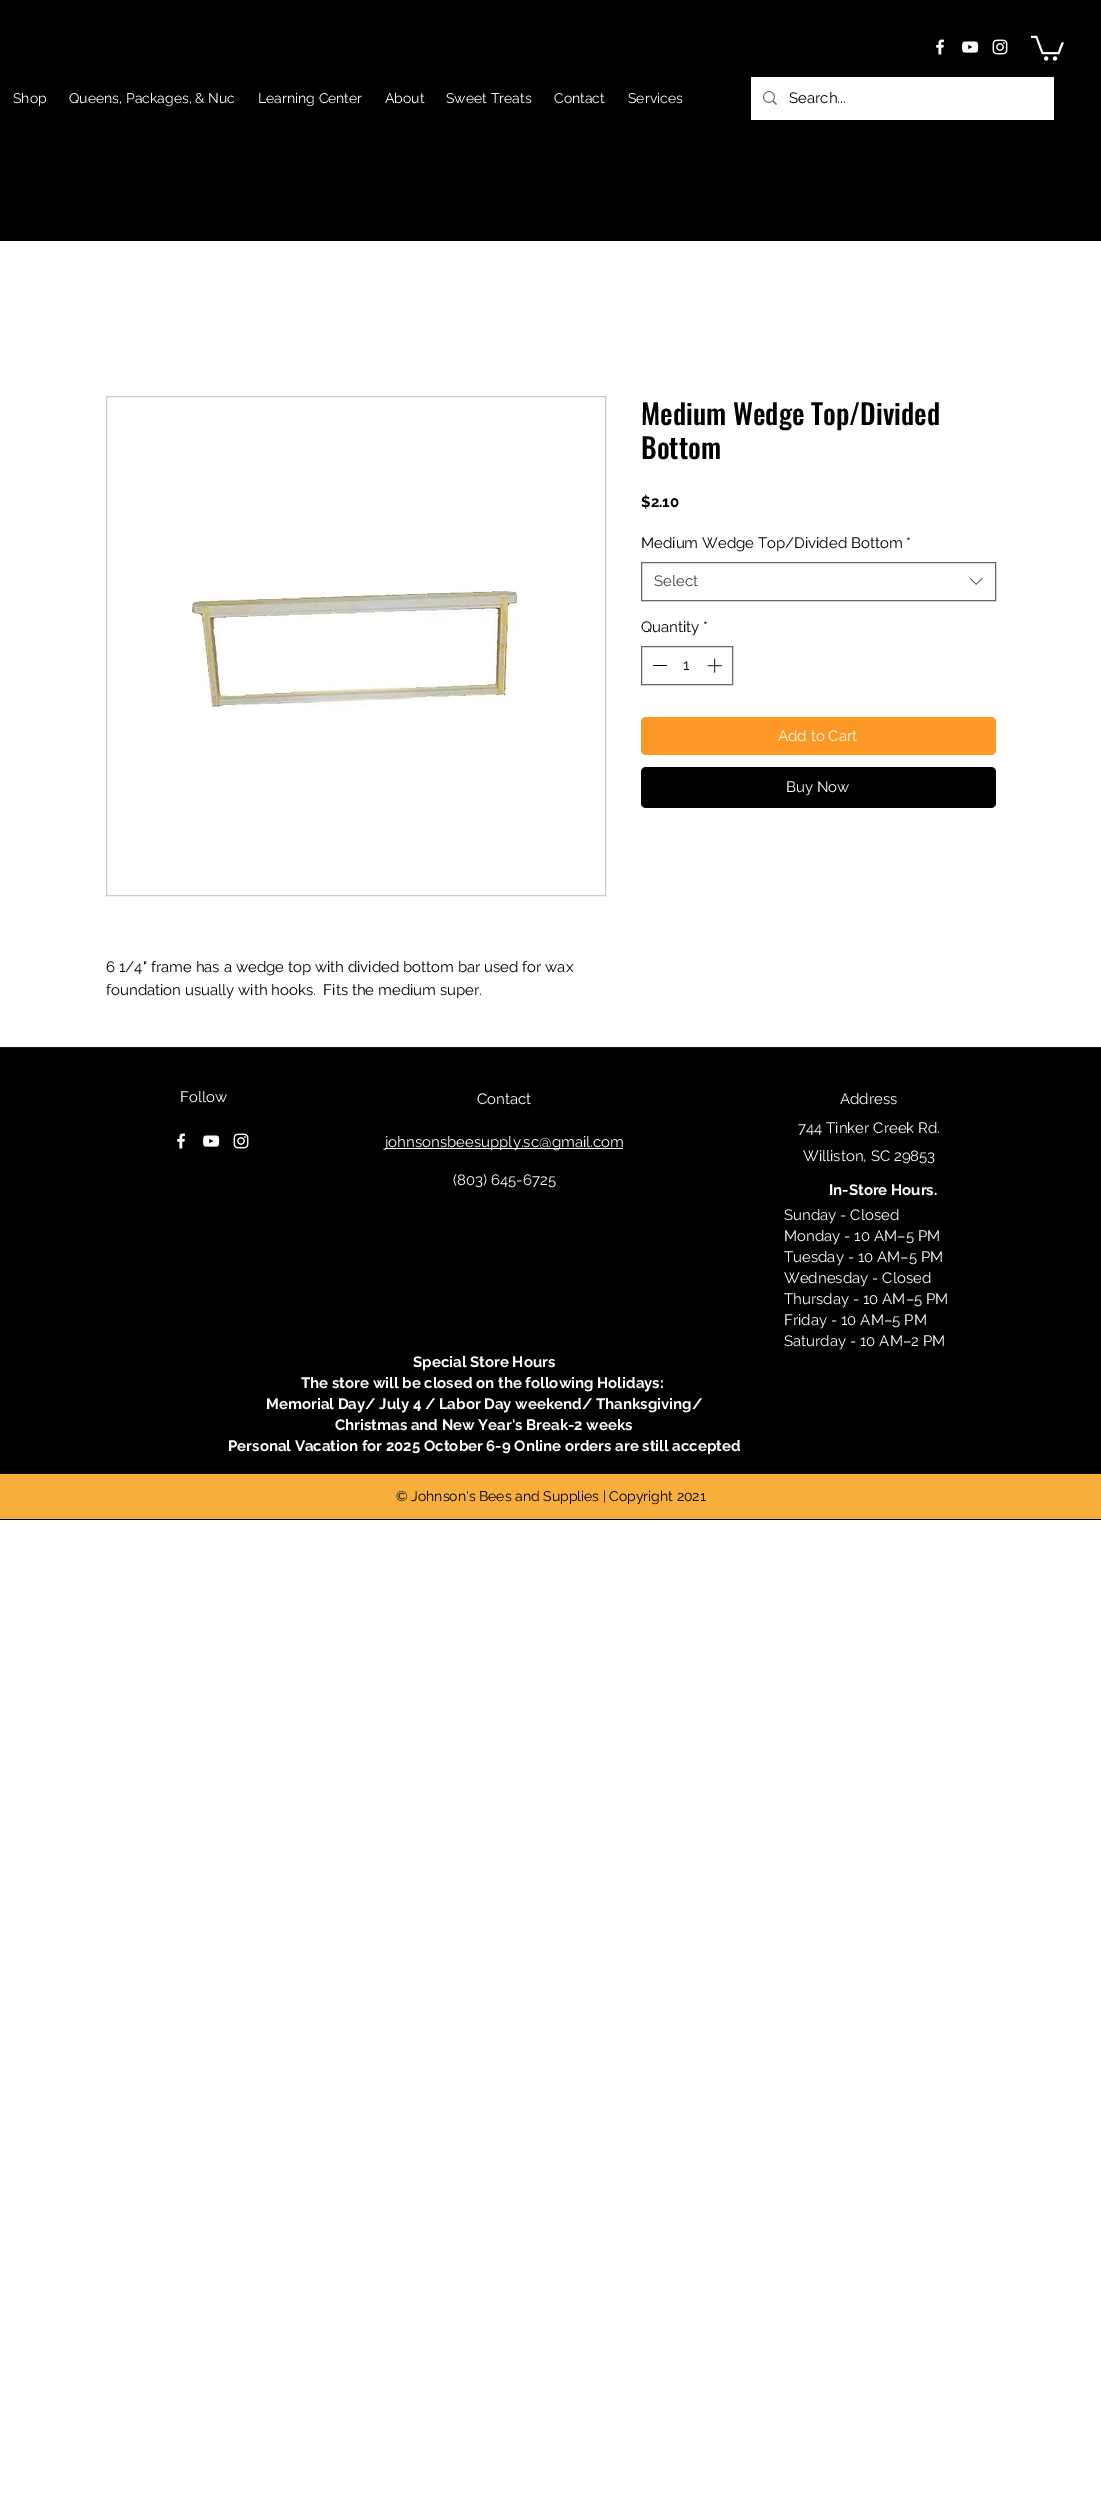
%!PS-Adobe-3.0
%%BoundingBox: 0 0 1101 2508
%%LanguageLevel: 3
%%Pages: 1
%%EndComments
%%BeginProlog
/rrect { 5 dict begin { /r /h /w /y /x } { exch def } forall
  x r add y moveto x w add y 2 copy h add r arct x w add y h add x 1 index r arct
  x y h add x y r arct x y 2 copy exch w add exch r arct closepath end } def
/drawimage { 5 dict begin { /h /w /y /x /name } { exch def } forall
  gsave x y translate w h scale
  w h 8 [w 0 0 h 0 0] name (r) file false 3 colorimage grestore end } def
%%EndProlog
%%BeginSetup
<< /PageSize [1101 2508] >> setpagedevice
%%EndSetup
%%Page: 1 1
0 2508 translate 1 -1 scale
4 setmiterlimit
1 setgray
0 0 1101 2508 rectfill
0 setgray
0 0 1101 241 rectfill
(images/1.raw) 936 39 9 16 drawimage
(images/2.raw) 961 41 18 12 drawimage
(images/3.raw) 992 39 16 16 drawimage
(images/4.raw) 1031 35 33 26 drawimage
1 setgray
751 77 303 43 rectfill
(images/5.raw) 763 91 14 14 drawimage
0.4 setgray
641.5 562.5 354 38 rectstroke
(images/6.raw) 969 577 14 8 drawimage
641.5 646.5 91 38 rectstroke
0 setgray
653 665 14 1 rectfill
(images/7.raw) 707 658 15 15 drawimage
0.988 0.596 0.137 setrgbcolor
641 717 355 38 5 rrect fill
0 setgray
641 767 355 41 5 rrect fill
0.8 setgray
106.5 396.5 499 499 rectstroke
(images/8.raw) 190 589 330 120 drawimage
0 setgray
0 1048 1101 472 rectfill
0.149 0.09 0.02 setrgbcolor
0 1047 1101 1 rectfill
(images/1.raw) 177 1133 9 16 drawimage
(images/2.raw) 202 1135 18 12 drawimage
(images/3.raw) 233 1133 16 16 drawimage
1 setgray
385 1148 238 1 rectfill
0.965 0.686 0.235 setrgbcolor
0 1474 1101 45 rectfill
/Raleway-Regular [14 0 0 -14 0 0] selectfont
1 setgray
13 103 moveto (Shop) show
69 103 moveto (Queens, Packages, & Nuc) show
258 103 moveto (Learning Center) show
385 103 moveto (About) show
446 103 moveto (Sweet Treats) show
554 103 moveto (Contact) show
628 103 moveto (Services) show
/Raleway-Regular [15 0 0 -15 0 0] selectfont
0 setgray
789 103 moveto (Search...) show
/Oswald-Medium [28 0 0 -28 0 0] selectfont
641 425 moveto (Medium Wedge Top/Divided) show
641 459 moveto (Bottom) show
/Raleway-Bold [15 0 0 -15 0 0] selectfont
641 507 moveto ($2.10) show
/Raleway-Regular [15 0 0 -15 0 0] selectfont
641 548 moveto (Medium Wedge Top/Divided Bottom *) show
0.267 setgray
654 586 moveto (Select) show
0 setgray
641 632 moveto (Quantity *) show
683 670 moveto (1) show
1 setgray
778 741 moveto (Add to Cart) show
786 792 moveto (Buy Now) show
0 setgray
106 972 moveto (6 1/4" frame has a wedge top with divided bottom bar used for wax) show
106 995 moveto (foundation usually with hooks.  Fits the medium super.) show
1 setgray
180 1102 moveto (Follow) show
477 1104 moveto (Contact) show
840 1104 moveto (Address) show
385 1147 moveto (johnsonsbeesupply.sc@gmail.com) show
798 1133 moveto (744 Tinker Creek Rd.) show
803 1161 moveto (Williston, SC 29853) show
453 1185 moveto (\(803\) 645-6725) show
/Raleway-Bold [15 0 0 -15 0 0] selectfont
829 1195 moveto (In-Store Hours.) show
/Raleway-Regular [15 0 0 -15 0 0] selectfont
784 1220 moveto (Sunday - Closed) show
784 1241 moveto (Monday - 10 AM–5 PM) show
784 1262 moveto (Tuesday - 10 AM–5 PM) show
784 1283 moveto (Wednesday - Closed) show
784 1304 moveto (Thursday - 10 AM–5 PM) show
784 1325 moveto (Friday - 10 AM–5 PM) show
784 1346 moveto (Saturday - 10 AM–2 PM) show
/Raleway-Bold [15 0 0 -15 0 0] selectfont
413 1367 moveto (Special Store Hours) show
301 1388 moveto (The store will be closed on the following Holidays:) show
266 1409 moveto (Memorial Day/ July 4 / Labor Day weekend/ Thanksgiving/) show
335 1430 moveto (Christmas and New Year's Break-2 weeks) show
228 1451 moveto (Personal Vacation for 2025 October 6-9 Online orders are still accepted) show
/Raleway-Regular [14 0 0 -14 0 0] selectfont
0 setgray
396 1501 moveto (© Johnson's Bees and Supplies | Copyright 2021) show
showpage
%%EOF
